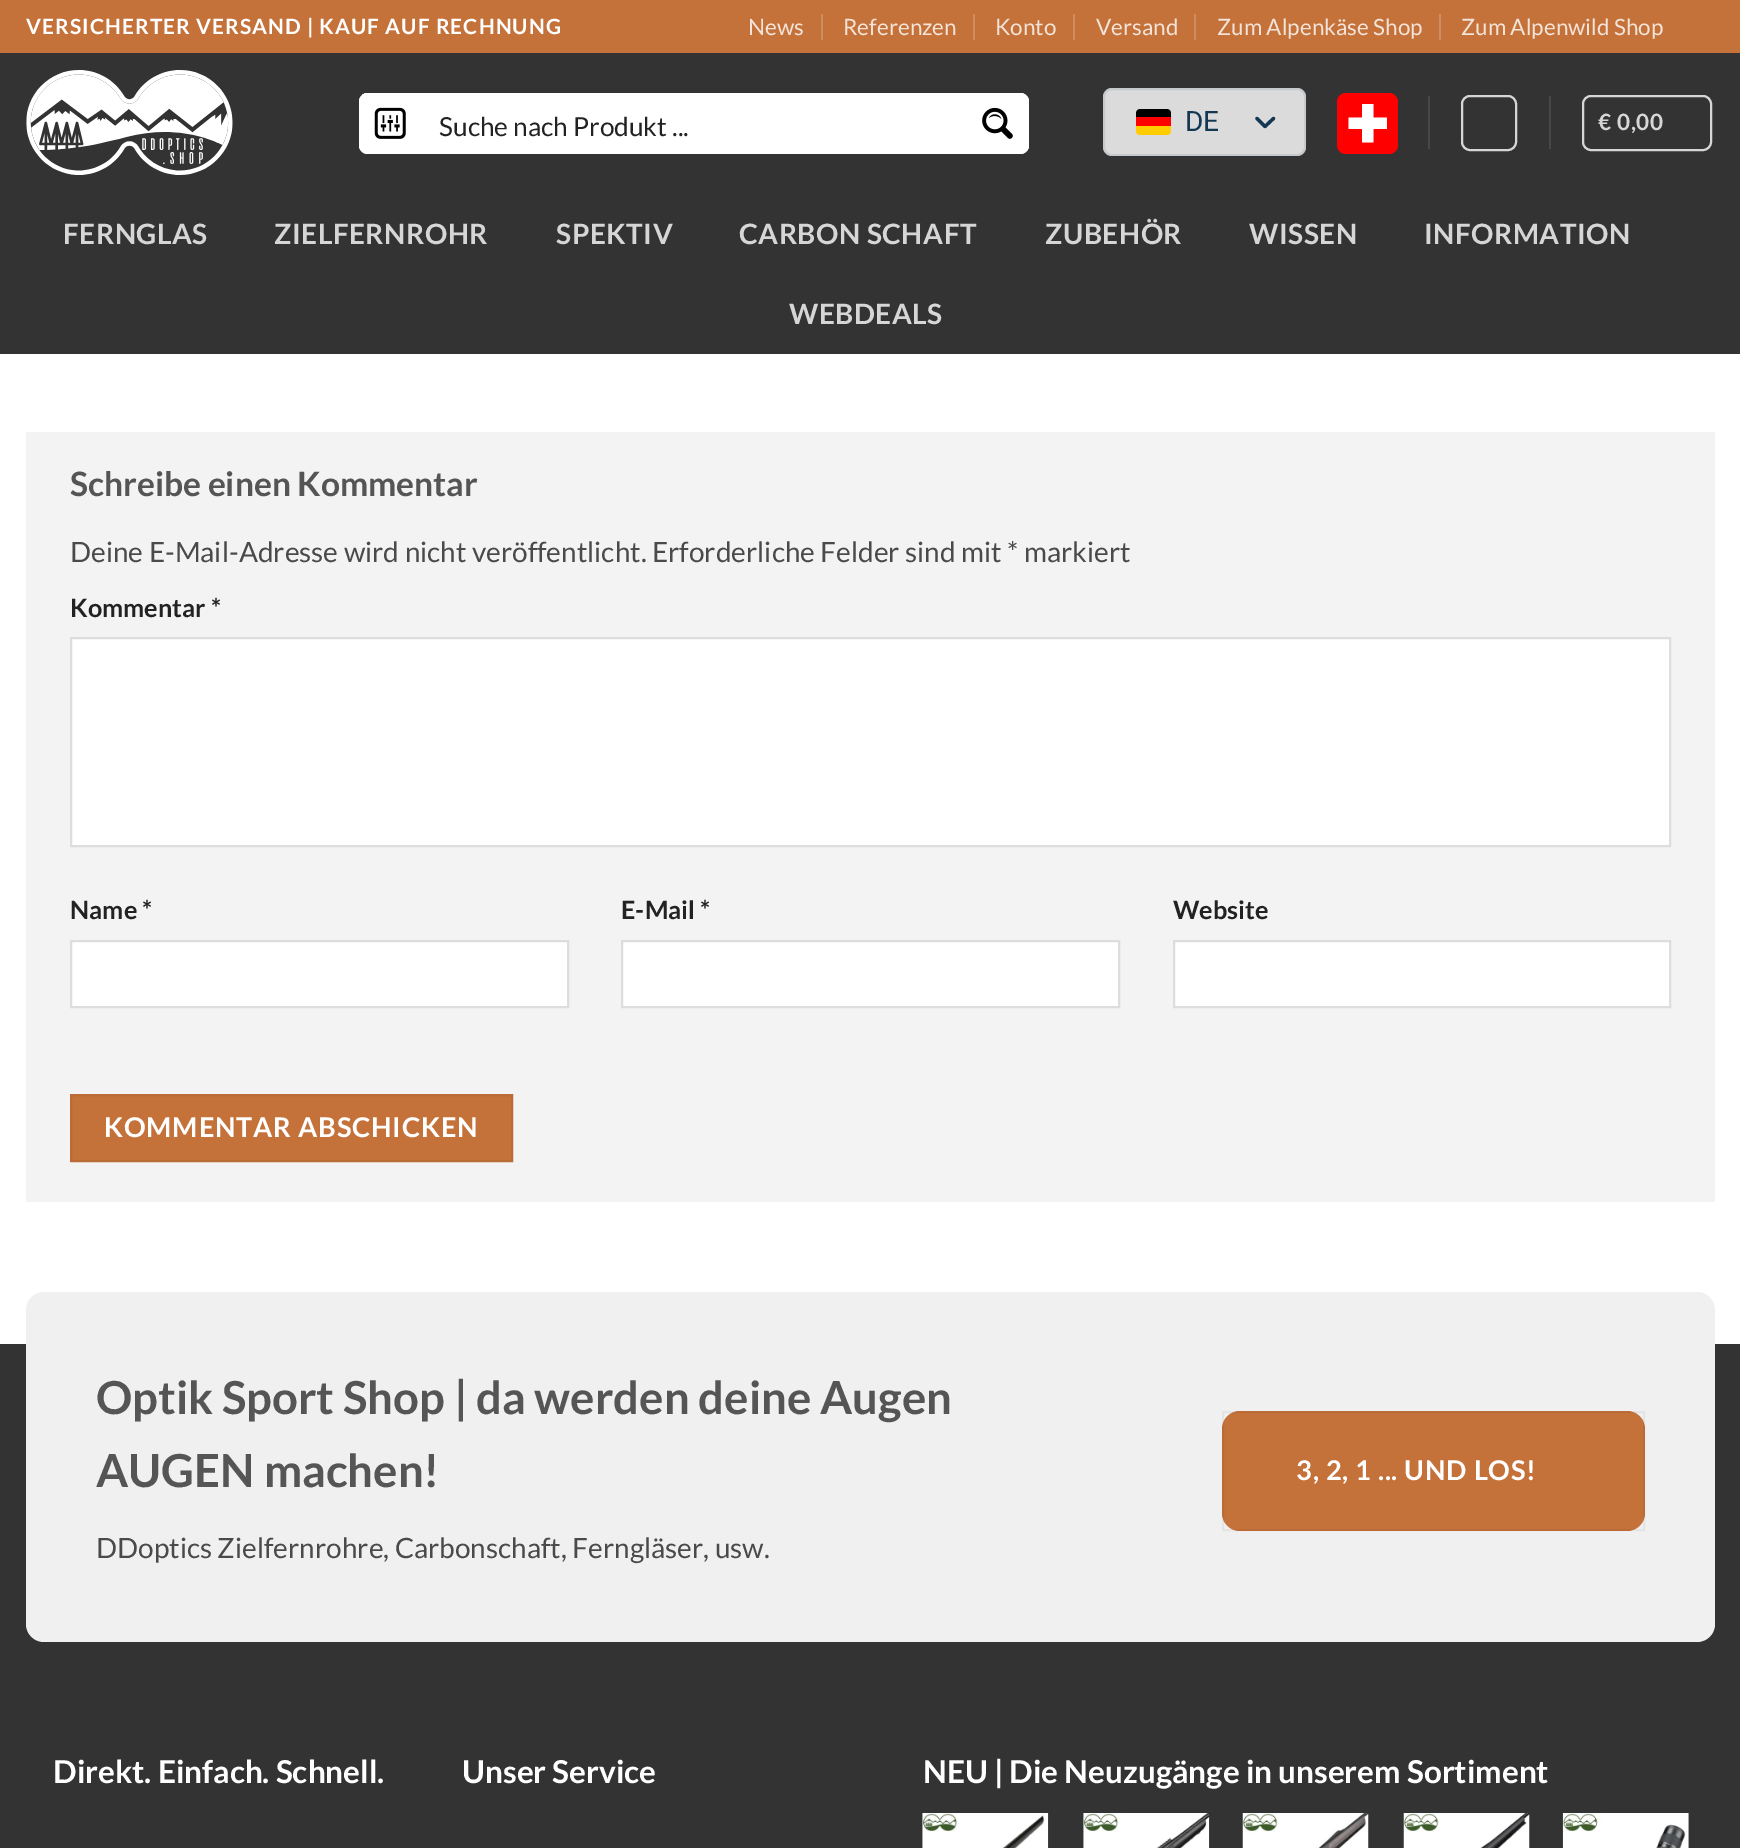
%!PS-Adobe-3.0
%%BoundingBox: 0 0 1740 1848
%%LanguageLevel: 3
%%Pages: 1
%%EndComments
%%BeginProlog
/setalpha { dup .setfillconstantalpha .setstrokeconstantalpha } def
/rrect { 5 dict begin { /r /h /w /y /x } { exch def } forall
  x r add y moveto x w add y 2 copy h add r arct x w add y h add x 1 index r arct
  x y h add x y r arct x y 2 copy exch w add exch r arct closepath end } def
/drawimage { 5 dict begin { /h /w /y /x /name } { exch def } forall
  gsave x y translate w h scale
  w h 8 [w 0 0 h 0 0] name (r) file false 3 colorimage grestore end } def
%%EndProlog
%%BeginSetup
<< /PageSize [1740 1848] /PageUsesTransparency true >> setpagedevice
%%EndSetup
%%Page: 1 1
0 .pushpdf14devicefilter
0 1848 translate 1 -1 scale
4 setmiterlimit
1 setgray
0 0 1740 1848 rectfill
0.769 0.443 0.227 setrgbcolor
0 0 1740 53 rectfill
0.816 0.553 0.38 setrgbcolor
821 14 2 26 rectfill
973 14 2 26 rectfill
1073 14 2 26 rectfill
1194 14 2 26 rectfill
1439 14 2 26 rectfill
0.2 setgray
0 53 1740 301 rectfill
(images/1.raw) 26 70 207 105 drawimage
1 setgray
359 93 670 61 9 rrect fill
newpath 368 93 moveto 420 93 lineto 420 154 lineto 368 154 lineto 363 154 359 150 359 145 curveto 359 102 lineto 359 97 363 93 368 93 curveto closepath fill
gsave
359 93 670 61 9 rrect clip newpath
0.64 setalpha
359 93 61 2 rectfill
grestore
(images/2.raw) 374 107 32 32 drawimage
newpath 968 93 moveto 1020 93 lineto 1025 93 1029 97 1029 102 curveto 1029 145 lineto 1029 150 1025 154 1020 154 curveto 968 154 lineto closepath fill
gsave
968 93 61 61 rectclip
0.64 setalpha
newpath 966 94 moveto 966 154 lineto 794 154 lineto 794 93 lineto 1020 93 lineto 1024 94 lineto closepath 1027 151 moveto 1028 149 1029 147 1029 145 curveto 1029 102 lineto 1029 100 1028 98 1027 96 curveto closepath eofill
grestore
(images/3.raw) 982 107 31 32 drawimage
0.859 setgray
1103 88 203 68 9 rrect fill
0.1 setalpha
0.078 0.22 0.322 setrgbcolor
2 setlinewidth
1104 89 201 66 8 rrect stroke
1 setalpha
1 0.8 0 setrgbcolor
newpath 1136 126 moveto 1171 126 lineto 1171 131 lineto 1171 133 1169 135 1167 135 curveto 1140 135 lineto 1138 135 1136 133 1136 131 curveto closepath fill
0 0 0.004 setrgbcolor
newpath 1140 109 moveto 1167 109 lineto 1169 109 1171 111 1171 113 curveto 1171 117 lineto 1136 117 lineto 1136 113 lineto 1136 111 1138 109 1140 109 curveto closepath fill
1 0 0 setrgbcolor
1136 117 35 9 rectfill
0.078 0.22 0.322 setrgbcolor
3.3 setlinewidth
1 setlinecap
1 setlinejoin
newpath 1257 118.5 moveto 1265 126.5 lineto 1273.5 118.5 lineto stroke
1 0 0 setrgbcolor
1337 93 61 61 9 rrect fill
1 setgray
newpath 1362 104 moveto 1373.5 104 lineto 1373.5 117.5 lineto 1387 117.5 lineto 1387 129 lineto 1373.5 129 lineto 1373.5 142.5 lineto 1362 142.5 lineto 1362 129 lineto 1348.5 129 lineto 1348.5 117.5 lineto 1362 117.5 lineto closepath fill
0.278 setgray
1428 96 2 53 rectfill
0.839 setgray
2 setlinewidth
0 setlinecap
0 setlinejoin
1462 96 54 54 8 rrect stroke
0.278 setgray
1549 96 2 53 rectfill
0.839 setgray
1583 96 128 54 8 rrect stroke
0.953 setgray
26 432 1689 770 rectfill
1 setgray
newpath 71 638 moveto 1670 638 lineto 1670 846 lineto 71 846 lineto closepath gsave fill grestore
0.867 setgray
stroke
1 setgray
newpath 71 941 moveto 568 941 lineto 568 1007 lineto 71 1007 lineto closepath gsave fill grestore
0.867 setgray
stroke
1 setgray
newpath 622 941 moveto 1119 941 lineto 1119 1007 lineto 622 1007 lineto closepath gsave fill grestore
0.867 setgray
stroke
1 setgray
newpath 1174 941 moveto 1670 941 lineto 1670 1007 lineto 1174 1007 lineto closepath gsave fill grestore
0.867 setgray
stroke
0.769 0.443 0.227 setrgbcolor
newpath 71 1095 moveto 512 1095 lineto 512 1161 lineto 71 1161 lineto closepath gsave fill grestore
0.729 0.42 0.216 setrgbcolor
stroke
0.2 setgray
0 1344 1740 504 rectfill
0.941 setgray
26 1292 1689 350 18 rrect fill
0.769 0.443 0.227 setrgbcolor
1222 1411 423 120 18 rrect fill
0.05 setalpha
0 setgray
1223 1412 421 118 rectstroke
1 setalpha
(images/4.raw) 922 1813 127 35 drawimage
(images/5.raw) 1083 1813 127 35 drawimage
(images/6.raw) 1242 1813 127 35 drawimage
(images/7.raw) 1403 1813 127 35 drawimage
(images/8.raw) 1562 1813 127 35 drawimage
/Lato-Bold [21 0 0 -21 0 0] selectfont
1 setgray
26 34 moveto 1.05 0 (VERSICHERTER VERSAND | KAUF AUF RECHNUNG) ashow
/Lato-Regular [22.5 0 0 -22.5 0 0] selectfont
0.953 0.89 0.847 setrgbcolor
748 35 moveto (News) show
843 35 moveto (Referenzen) show
995 35 moveto (Konto) show
1096 35 moveto (Versand) show
1217 35 moveto (Zum Alpenkäse Shop) show
1461 35 moveto (Zum Alpenwild Shop) show
/Lato-Regular [26.25 0 0 -26.25 0 0] selectfont
0.133 setgray
439 136 moveto (Suche nach Produkt ...) show
/Roboto-Regular [28 0 0 -28 0 0] selectfont
0.078 0.22 0.322 setrgbcolor
1185 131 moveto (DE) show
/Lato-Bold [22.5 0 0 -22.5 0 0] selectfont
0.839 setgray
1598 130 moveto 0.75 0 (€ 0,00) ashow
/Lato-Bold [28 0 0 -28 0 0] selectfont
63 244 moveto 0.5 0 (FERNGLAS) ashow
274 244 moveto 0.5 0 (ZIELFERNROHR) ashow
556 244 moveto 0.5 0 (SPEKTIV) ashow
739 244 moveto 0.5 0 (CARBON SCHAFT) ashow
1045 244 moveto 0.5 0 (ZUBEHÖR) ashow
1249 244 moveto 0.5 0 (WISSEN) ashow
1424 244 moveto 0.5 0 (INFORMATION) ashow
789 324 moveto 0.5 0 (WEBDEALS) ashow
/Lato-Bold [33.6 0 0 -33.6 0 0] selectfont
0.333 setgray
70 496 moveto (Schreibe einen Kommentar) show
/Lato-Regular [28 0 0 -28 0 0] selectfont
0.29 setgray
70 562 moveto (Deine E-Mail-Adresse wird nicht veröffentlicht. Erforderliche Felder sind mit * markiert) show
/Lato-Bold [25.25 0 0 -25.25 0 0] selectfont
0.133 setgray
70 617 moveto (Kommentar *) show
70 919 moveto (Name *) show
621 919 moveto (E-Mail *) show
1173 919 moveto (Website) show
/Lato-Bold [27.2 0 0 -27.2 0 0] selectfont
1 setgray
104 1137 moveto 0.8 0 (KOMMENTAR ABSCHICKEN) ashow
/Lato-Bold [45.5 0 0 -45.5 0 0] selectfont
0.333 setgray
96 1414 moveto (Optik Sport Shop | da werden deine Augen) show
96 1487 moveto (AUGEN machen!) show
/Lato-Regular [28 0 0 -28 0 0] selectfont
0.29 setgray
96 1558 moveto (DDoptics Zielfernrohre, Carbonschaft, Ferngläser, usw.) show
/Lato-Bold [27.2 0 0 -27.2 0 0] selectfont
1 setgray
1296 1480 moveto 0.8 0 (3, 2, 1 ... UND LOS!) ashow
/Lato-Bold [31.5 0 0 -31.5 0 0] selectfont
53 1783 moveto (Direkt. Einfach. Schnell.) show
462 1783 moveto (Unser Service) show
923 1783 moveto (NEU | Die Neuzugänge in unserem Sortiment) show
.poppdf14devicefilter showpage
%%EOF
